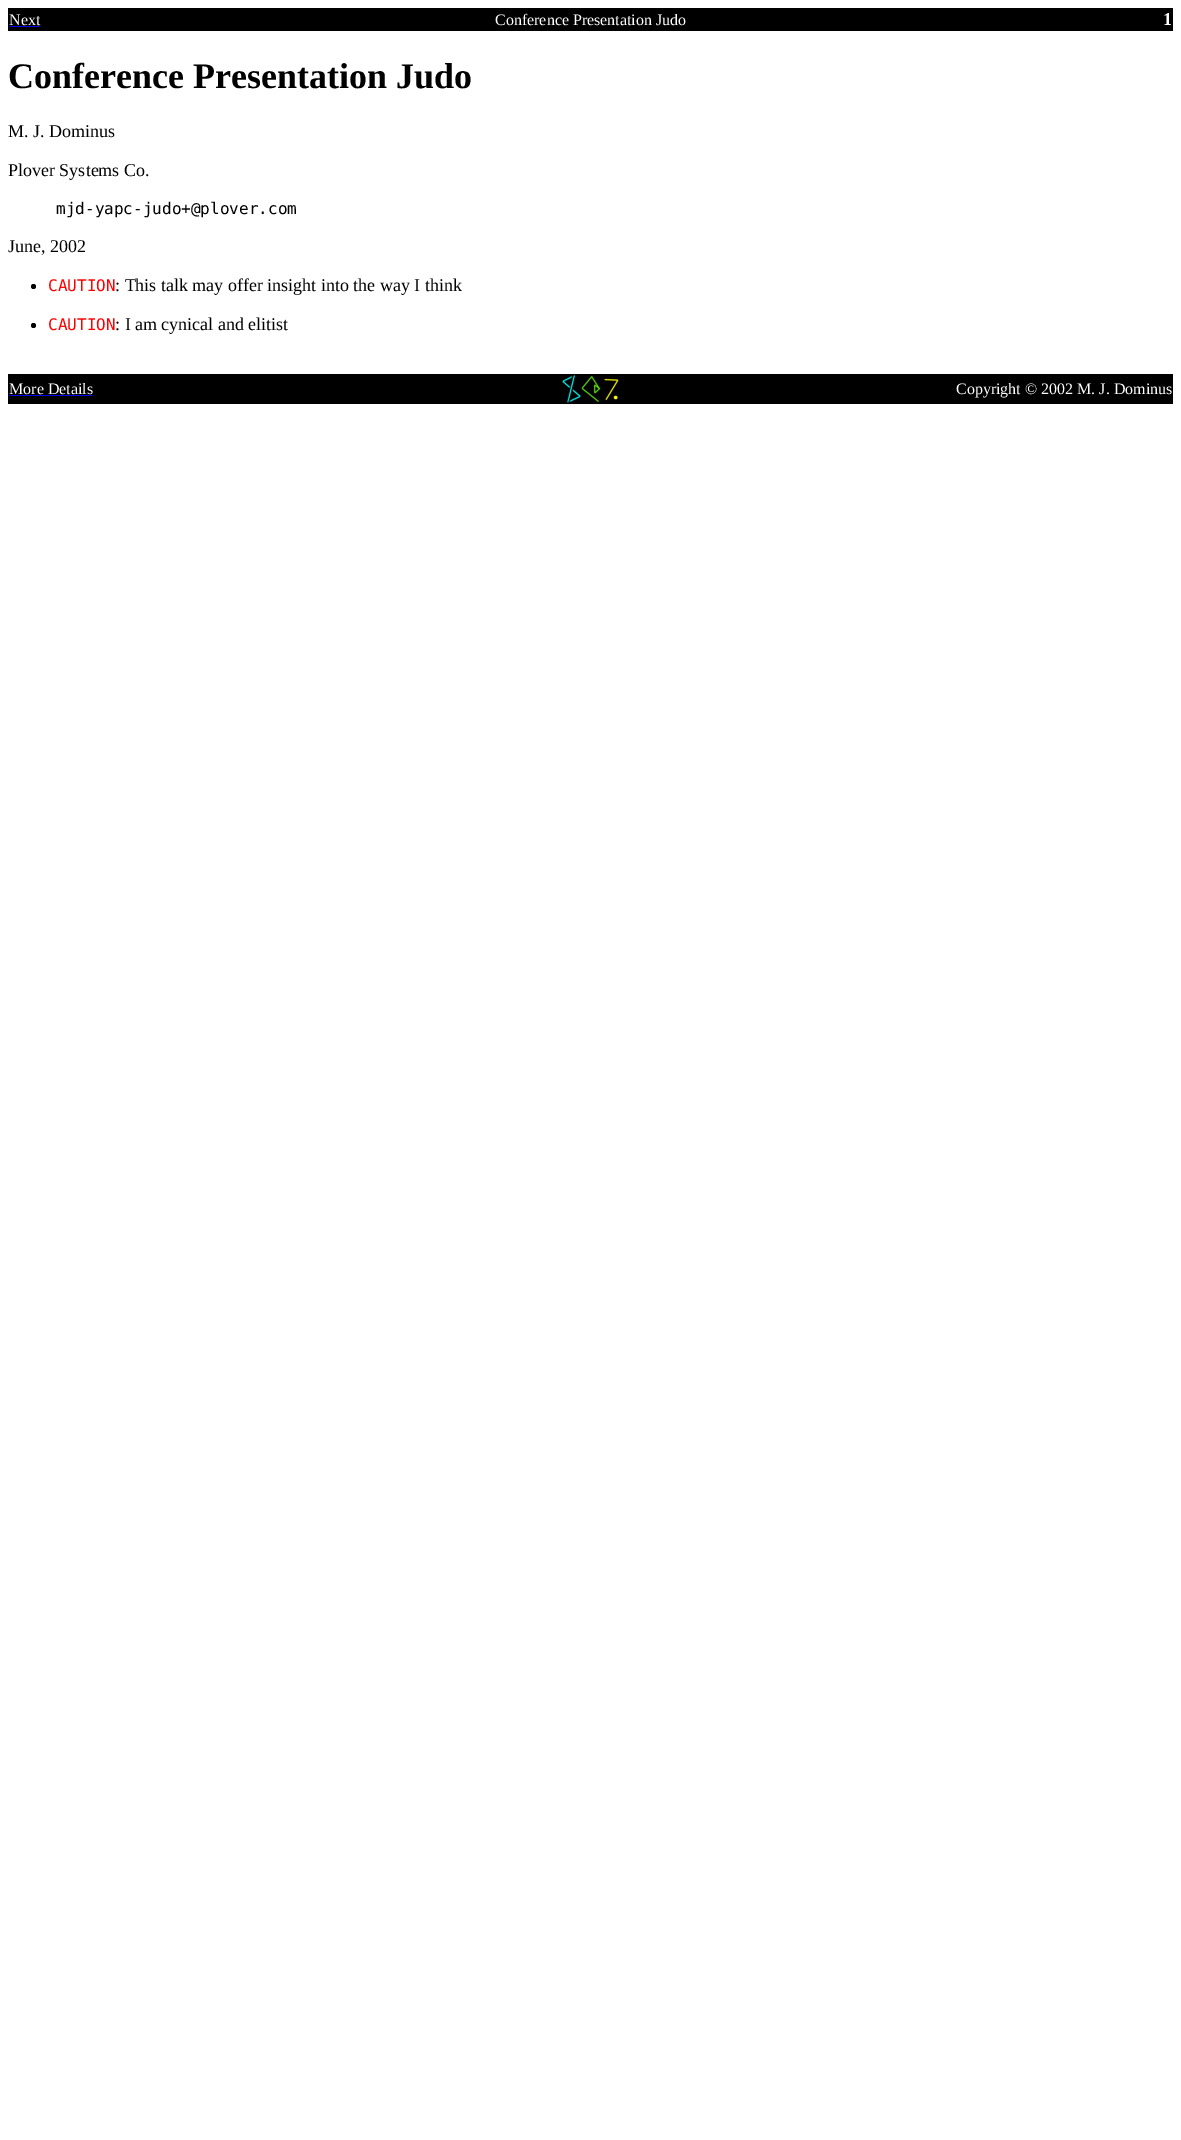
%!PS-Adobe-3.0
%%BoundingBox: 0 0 1181 2140
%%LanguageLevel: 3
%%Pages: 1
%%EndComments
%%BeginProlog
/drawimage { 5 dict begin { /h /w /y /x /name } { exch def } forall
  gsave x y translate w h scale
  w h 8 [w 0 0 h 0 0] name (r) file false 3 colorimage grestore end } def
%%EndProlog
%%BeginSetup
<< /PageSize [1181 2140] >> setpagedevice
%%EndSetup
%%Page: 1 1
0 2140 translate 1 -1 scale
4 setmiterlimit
1 setgray
0 0 1181 2140 rectfill
0 setgray
8 8 1165 23 rectfill
0 0 0.933 setrgbcolor
9 26 31 1 rectfill
0 setgray
newpath 33.5 286.5 2.5 0 360 arc closepath fill
newpath 33.5 325.5 2.5 0 360 arc closepath fill
8 374 1165 30 rectfill
0 0 0.933 setrgbcolor
9 395 84 1 rectfill
(images/1.raw) 562 375 57 28 drawimage
/LiberationSerif-Regular [16 0 0 -16 0 0] selectfont
1 setgray
9 25 moveto (Next) show
495 25 moveto (Conference Presentation Judo) show
/LiberationSerif-Bold [18 0 0 -18 0 0] selectfont
1163 25 moveto (1) show
/LiberationSerif-Bold [36 0 0 -36 0 0] selectfont
0 setgray
8 88 moveto (Conference Presentation Judo) show
/LiberationSerif-Regular [18 0 0 -18 0 0] selectfont
8 137 moveto (M. J. Dominus) show
8 176 moveto (Plover Systems Co.) show
/DejaVuSansMono-Regular [16 0 0 -16 0 0] selectfont
56 214 moveto (mjd-yapc-judo+@plover.com) show
/LiberationSerif-Regular [18 0 0 -18 0 0] selectfont
8 252 moveto (June, 2002) show
/DejaVuSansMono-Regular [16 0 0 -16 0 0] selectfont
1 0 0 setrgbcolor
48 291 moveto (CAUTION) show
/LiberationSerif-Regular [18 0 0 -18 0 0] selectfont
0 setgray
115 291 moveto (: This talk may offer insight into the way I think) show
/DejaVuSansMono-Regular [16 0 0 -16 0 0] selectfont
1 0 0 setrgbcolor
48 330 moveto (CAUTION) show
/LiberationSerif-Regular [18 0 0 -18 0 0] selectfont
0 setgray
115 330 moveto (: I am cynical and elitist) show
/LiberationSerif-Regular [16 0 0 -16 0 0] selectfont
1 setgray
9 394 moveto (More Details) show
956 394 moveto (Copyright © 2002 M. J. Dominus) show
showpage
%%EOF
